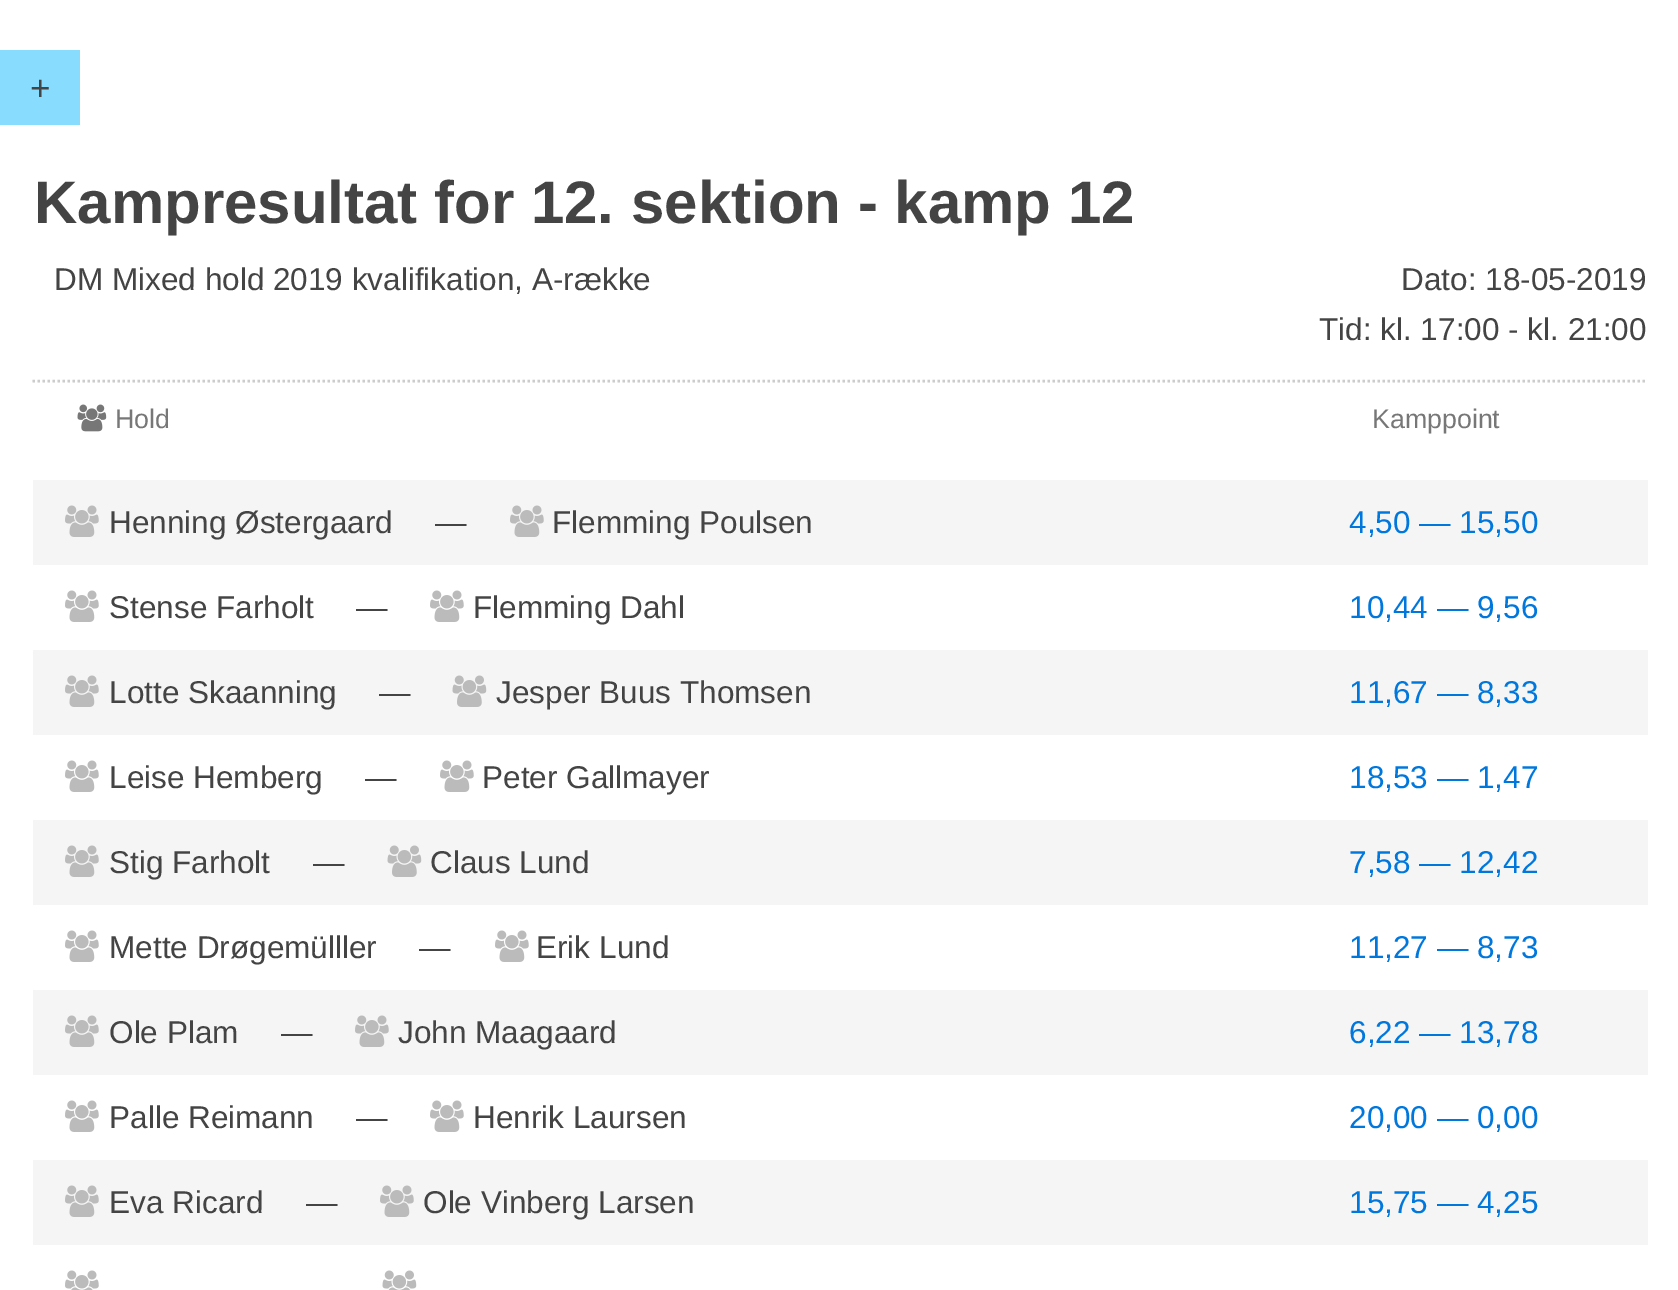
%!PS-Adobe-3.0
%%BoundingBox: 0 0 1678 1290
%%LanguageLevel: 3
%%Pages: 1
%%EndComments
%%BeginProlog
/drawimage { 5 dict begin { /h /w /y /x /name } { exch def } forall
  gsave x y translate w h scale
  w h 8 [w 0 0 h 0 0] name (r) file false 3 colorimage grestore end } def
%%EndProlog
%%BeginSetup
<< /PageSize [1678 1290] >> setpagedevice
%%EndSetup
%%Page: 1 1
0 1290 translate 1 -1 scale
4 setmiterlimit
1 setgray
0 0 1678 1290 rectfill
0.533 0.867 1 setrgbcolor
0 50 80 75 rectfill
0.8 setgray
2.5 setlinewidth
[2.5 2.5] 0 setdash
newpath 32.5 381 moveto 1647.5 381 lineto stroke
(images/1.raw) 77 404 30 28 drawimage
0.961 setgray
33 480 1615 85 rectfill
(images/2.raw) 65 505 34 32 drawimage
(images/2.raw) 510 505 34 32 drawimage
(images/3.raw) 65 590 34 32 drawimage
(images/3.raw) 430 590 34 32 drawimage
33 650 1615 85 rectfill
(images/2.raw) 65 675 34 32 drawimage
(images/4.raw) 452 675 35 32 drawimage
(images/3.raw) 65 760 34 32 drawimage
(images/3.raw) 440 760 34 32 drawimage
33 820 1615 85 rectfill
(images/2.raw) 65 845 34 32 drawimage
(images/4.raw) 387 845 35 32 drawimage
(images/3.raw) 65 930 34 32 drawimage
(images/3.raw) 495 930 34 32 drawimage
33 990 1615 85 rectfill
(images/2.raw) 65 1015 34 32 drawimage
(images/2.raw) 355 1015 34 32 drawimage
(images/3.raw) 65 1100 34 32 drawimage
(images/3.raw) 430 1100 34 32 drawimage
33 1160 1615 85 rectfill
(images/2.raw) 65 1185 34 32 drawimage
(images/2.raw) 380 1185 34 32 drawimage
(images/5.raw) 65 1270 34 20 drawimage
(images/6.raw) 382 1270 35 20 drawimage
/LiberationSans-Regular [35 0 0 -35 0 0] selectfont
0.267 setgray
30 100 moveto (+) show
/LiberationSans-Bold [60 0 0 -60 0 0] selectfont
34 223 moveto (Kampresultat for 12. sektion - kamp 12) show
/LiberationSans-Regular [31.5 0 0 -31.5 0 0] selectfont
54 290 moveto (DM Mixed hold 2019 kvalifikation, A-række) show
1401 290 moveto (Dato: 18-05-2019) show
1319 340 moveto (Tid: kl. 17:00 - kl. 21:00) show
/LiberationSans-Regular [26.75 0 0 -26.75 0 0] selectfont
0.467 setgray
115 428 moveto (Hold) show
1372 428 moveto (Kamppoint) show
/LiberationSans-Regular [31.5 0 0 -31.5 0 0] selectfont
0.267 setgray
109 533 moveto (Henning Østergaard) show
435 533 moveto (—) show
552 533 moveto (Flemming Poulsen) show
0 0.467 0.867 setrgbcolor
1349 533 moveto (4,50 — 15,50) show
0.267 setgray
109 618 moveto (Stense Farholt) show
356 618 moveto (—) show
473 618 moveto (Flemming Dahl) show
0 0.467 0.867 setrgbcolor
1349 618 moveto (10,44 — 9,56) show
0.267 setgray
109 703 moveto (Lotte Skaanning) show
379 703 moveto (—) show
496 703 moveto (Jesper Buus Thomsen) show
0 0.467 0.867 setrgbcolor
1349 703 moveto (11,67 — 8,33) show
0.267 setgray
109 788 moveto (Leise Hemberg) show
365 788 moveto (—) show
482 788 moveto (Peter Gallmayer) show
0 0.467 0.867 setrgbcolor
1349 788 moveto (18,53 — 1,47) show
0.267 setgray
109 873 moveto (Stig Farholt) show
313 873 moveto (—) show
430 873 moveto (Claus Lund) show
0 0.467 0.867 setrgbcolor
1349 873 moveto (7,58 — 12,42) show
0.267 setgray
109 958 moveto (Mette Drøgemülller) show
419 958 moveto (—) show
536 958 moveto (Erik Lund) show
0 0.467 0.867 setrgbcolor
1349 958 moveto (11,27 — 8,73) show
0.267 setgray
109 1043 moveto (Ole Plam) show
281 1043 moveto (—) show
398 1043 moveto (John Maagaard) show
0 0.467 0.867 setrgbcolor
1349 1043 moveto (6,22 — 13,78) show
0.267 setgray
109 1128 moveto (Palle Reimann) show
356 1128 moveto (—) show
473 1128 moveto (Henrik Laursen) show
0 0.467 0.867 setrgbcolor
1349 1128 moveto (20,00 — 0,00) show
0.267 setgray
109 1213 moveto (Eva Ricard) show
306 1213 moveto (—) show
423 1213 moveto (Ole Vinberg Larsen) show
0 0.467 0.867 setrgbcolor
1349 1213 moveto (15,75 — 4,25) show
showpage
%%EOF
